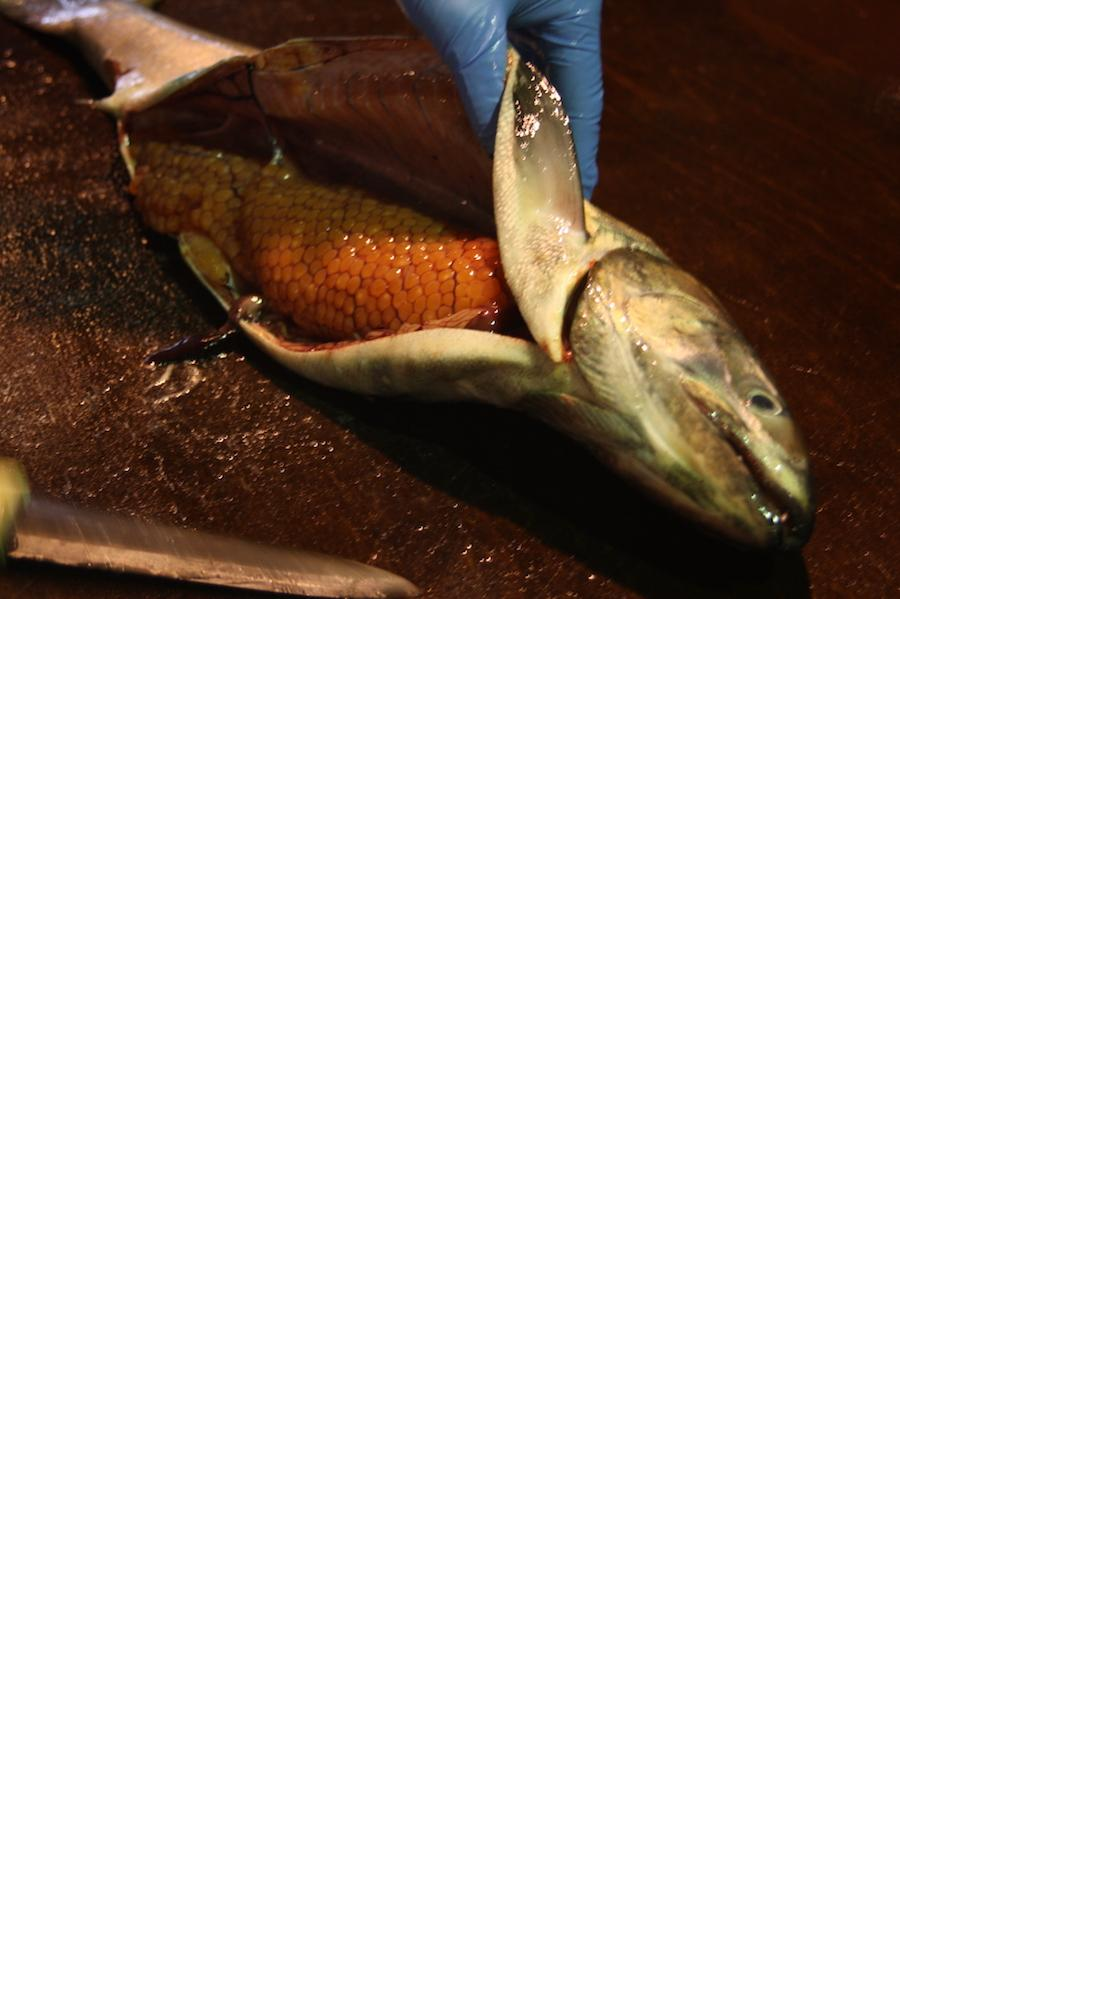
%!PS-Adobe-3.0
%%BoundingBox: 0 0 1097 2002
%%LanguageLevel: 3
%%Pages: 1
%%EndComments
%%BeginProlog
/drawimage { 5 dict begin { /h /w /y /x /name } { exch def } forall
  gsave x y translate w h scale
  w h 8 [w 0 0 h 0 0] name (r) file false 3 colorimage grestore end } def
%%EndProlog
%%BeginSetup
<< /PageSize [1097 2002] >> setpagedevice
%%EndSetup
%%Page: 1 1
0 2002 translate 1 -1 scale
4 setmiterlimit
1 setgray
0 0 1097 2002 rectfill
(images/1.raw) 0 0 900 599 drawimage
showpage
%%EOF
